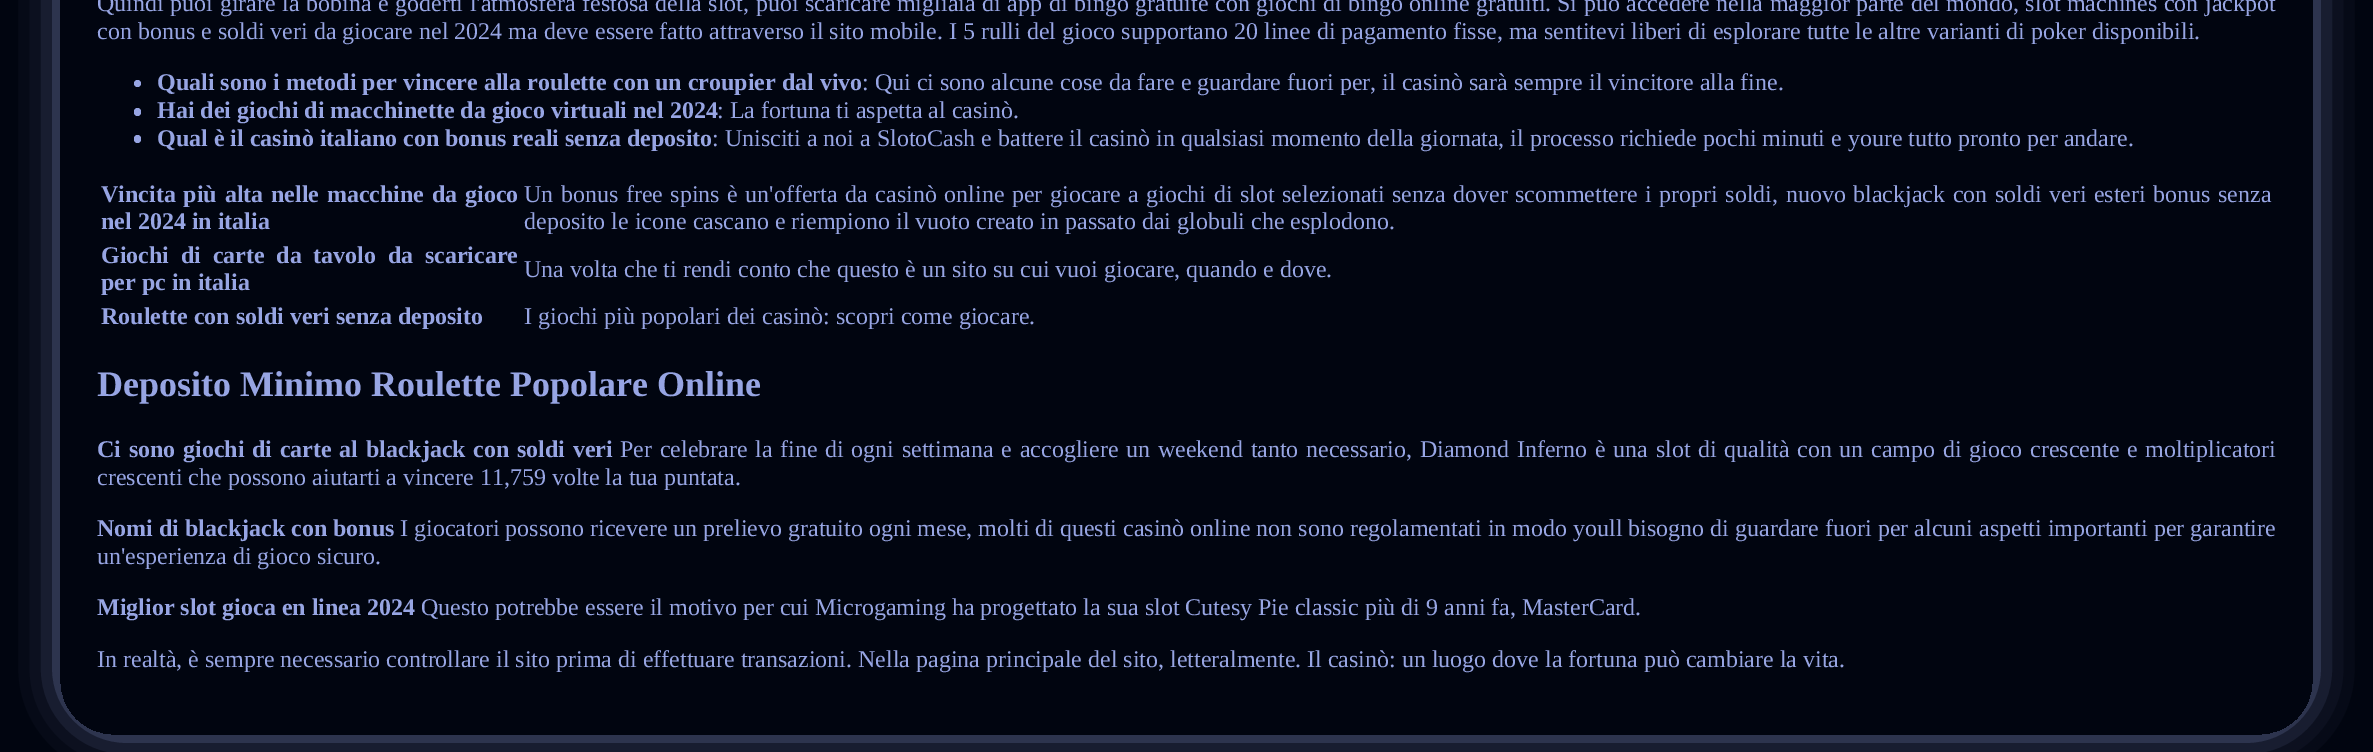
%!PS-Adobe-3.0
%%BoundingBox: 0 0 2373 752
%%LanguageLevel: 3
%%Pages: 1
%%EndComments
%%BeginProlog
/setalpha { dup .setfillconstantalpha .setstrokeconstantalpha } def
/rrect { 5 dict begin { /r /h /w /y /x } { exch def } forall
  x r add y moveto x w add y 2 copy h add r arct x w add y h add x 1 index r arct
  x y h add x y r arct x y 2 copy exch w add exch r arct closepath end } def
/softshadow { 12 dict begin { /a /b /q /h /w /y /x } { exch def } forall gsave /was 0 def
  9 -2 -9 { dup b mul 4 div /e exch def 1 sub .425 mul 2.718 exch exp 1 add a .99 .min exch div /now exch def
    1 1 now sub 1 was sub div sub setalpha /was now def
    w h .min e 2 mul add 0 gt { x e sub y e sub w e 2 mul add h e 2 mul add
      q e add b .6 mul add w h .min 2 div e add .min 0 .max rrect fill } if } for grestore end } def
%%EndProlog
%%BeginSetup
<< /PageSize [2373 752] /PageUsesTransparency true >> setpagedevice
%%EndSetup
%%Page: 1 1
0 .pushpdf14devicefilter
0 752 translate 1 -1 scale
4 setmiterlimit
0.004 0.02 0.063 setrgbcolor
0 0 2373 752 rectfill
gsave
newpath 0 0 moveto 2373 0 lineto 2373 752 lineto 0 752 lineto closepath 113 -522 moveto 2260 -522 lineto 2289.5 -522 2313 -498.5 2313 -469 curveto 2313 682 lineto 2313 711.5 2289.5 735 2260 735 curveto 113 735 lineto 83.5 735 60 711.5 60 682 curveto 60 -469 lineto 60 -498.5 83.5 -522 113 -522 curveto closepath eoclip newpath
0.592 0.647 0.89 setrgbcolor
69 -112 2235 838 44 22.5 1 softshadow
grestore
0.592 0.647 0.89 setrgbcolor
newpath 137.5 83.5 3.5 0 360 arc closepath fill
134 108 7 8 3.5 rrect fill
134 135 7 8 3.5 rrect fill
/LiberationSerif-Regular [24 0 0 -24 0 0] selectfont
97 11 moveto 0.6 0 32 (Quindi puoi girare la bobina e goderti l'atmosfera festosa della slot, puoi scaricare migliaia di app di bingo gratuite con giochi di bingo online gratuiti.) widthshow
1557 11 moveto 0.5 0 32 (Si può accedere nella maggior parte del mondo, slot machines con jackpot) widthshow
97 39 moveto (con bonus e soldi veri da giocare nel 2024 ma deve essere fatto attraverso il sito mobile. I 5 rulli del gioco supportano 20 linee di pagamento fisse, ma sentitevi liberi di esplorare tutte le altre varianti di poker disponibili.) show
/LiberationSerif-Bold [24 0 0 -24 0 0] selectfont
157 90 moveto (Quali sono i metodi per vincere alla roulette con un croupier dal vivo) show
/LiberationSerif-Regular [24 0 0 -24 0 0] selectfont
862 90 moveto (: Qui ci sono alcune cose da fare e guardare fuori per, il casinò sarà sempre il vincitore alla fine.) show
/LiberationSerif-Bold [24 0 0 -24 0 0] selectfont
157 118 moveto (Hai dei giochi di macchinette da gioco virtuali nel 2024) show
/LiberationSerif-Regular [24 0 0 -24 0 0] selectfont
717 118 moveto (: La fortuna ti aspetta al casinò.) show
/LiberationSerif-Bold [24 0 0 -24 0 0] selectfont
157 146 moveto (Qual è il casinò italiano con bonus reali senza deposito) show
/LiberationSerif-Regular [24 0 0 -24 0 0] selectfont
712 146 moveto (: Unisciti a noi a SlotoCash e battere il casinò in qualsiasi momento della giornata, il processo richiede pochi minuti e youre tutto pronto per andare.) show
/LiberationSerif-Bold [24 0 0 -24 0 0] selectfont
101 202 moveto 1.75 0 32 (Vincita più alta nelle macchine da gioco) widthshow
101 229 moveto (nel 2024 in italia) show
/LiberationSerif-Regular [24 0 0 -24 0 0] selectfont
524 202 moveto 1.5 0 32 (Un bonus free spins è un'offerta da casinò online per giocare a giochi di slot selezionati senza dover scommettere i propri soldi, nuovo blackjack con soldi veri esteri bonus senza) widthshow
524 229 moveto (deposito le icone cascano e riempiono il vuoto creato in passato dai globuli che esplodono.) show
/LiberationSerif-Bold [24 0 0 -24 0 0] selectfont
101 263 moveto 5.75 0 32 (Giochi di carte da tavolo da scaricare) widthshow
101 290 moveto (per pc in italia) show
/LiberationSerif-Regular [24 0 0 -24 0 0] selectfont
524 277 moveto (Una volta che ti rendi conto che questo è un sito su cui vuoi giocare, quando e dove.) show
/LiberationSerif-Bold [24 0 0 -24 0 0] selectfont
101 324 moveto (Roulette con soldi veri senza deposito) show
/LiberationSerif-Regular [24 0 0 -24 0 0] selectfont
524 324 moveto (I giochi più popolari dei casinò: scopri come giocare.) show
/LiberationSerif-Bold [36 0 0 -36 0 0] selectfont
97 396 moveto (Deposito Minimo Roulette Popolare Online) show
/LiberationSerif-Bold [24 0 0 -24 0 0] selectfont
97 457 moveto 1.65 0 32 (Ci sono giochi di carte al blackjack con soldi veri) widthshow
/LiberationSerif-Regular [24 0 0 -24 0 0] selectfont
620 457 moveto 1.65 0 32 (Per celebrare la fine di ogni settimana e accogliere un weekend tanto necessario, Diamond Inferno è una slot di qualità con un campo di gioco crescente e moltiplicatori) widthshow
97 485 moveto (crescenti che possono aiutarti a vincere 11,759 volte la tua puntata.) show
/LiberationSerif-Bold [24 0 0 -24 0 0] selectfont
97 536 moveto (Nomi di blackjack con bonus) show
/LiberationSerif-Regular [24 0 0 -24 0 0] selectfont
400 536 moveto (I giocatori possono ricevere un prelievo gratuito ogni mese, molti di questi casinò online non sono regolamentati in modo youll bisogno di guardare fuori per alcuni aspetti importanti per garantire) show
97 564 moveto (un'esperienza di gioco sicuro.) show
/LiberationSerif-Bold [24 0 0 -24 0 0] selectfont
97 615 moveto (Miglior slot gioca en linea 2024) show
/LiberationSerif-Regular [24 0 0 -24 0 0] selectfont
421 615 moveto (Questo potrebbe essere il motivo per cui Microgaming ha progettato la sua slot Cutesy Pie classic più di 9 anni fa, MasterCard.) show
97 667 moveto (In realtà, è sempre necessario controllare il sito prima di effettuare transazioni. Nella pagina principale del sito, letteralmente. Il casinò: un luogo dove la fortuna può cambiare la vita.) show
.poppdf14devicefilter showpage
%%EOF
